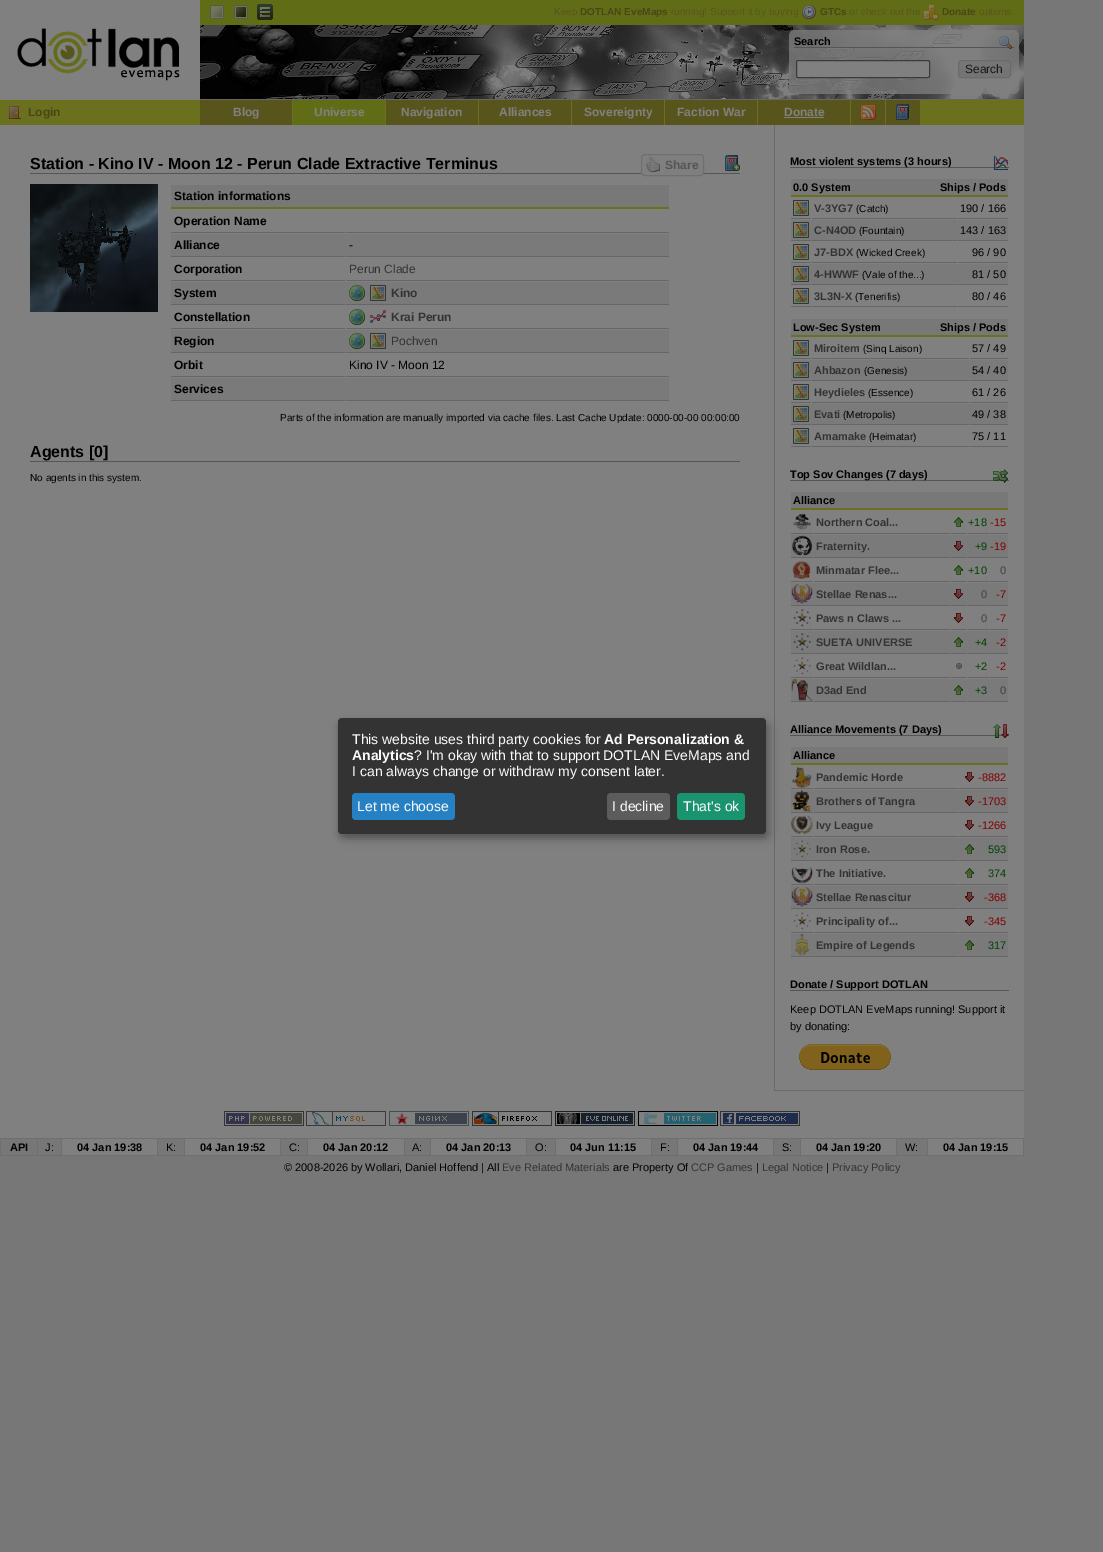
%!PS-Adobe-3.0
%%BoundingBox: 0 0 1103 1552
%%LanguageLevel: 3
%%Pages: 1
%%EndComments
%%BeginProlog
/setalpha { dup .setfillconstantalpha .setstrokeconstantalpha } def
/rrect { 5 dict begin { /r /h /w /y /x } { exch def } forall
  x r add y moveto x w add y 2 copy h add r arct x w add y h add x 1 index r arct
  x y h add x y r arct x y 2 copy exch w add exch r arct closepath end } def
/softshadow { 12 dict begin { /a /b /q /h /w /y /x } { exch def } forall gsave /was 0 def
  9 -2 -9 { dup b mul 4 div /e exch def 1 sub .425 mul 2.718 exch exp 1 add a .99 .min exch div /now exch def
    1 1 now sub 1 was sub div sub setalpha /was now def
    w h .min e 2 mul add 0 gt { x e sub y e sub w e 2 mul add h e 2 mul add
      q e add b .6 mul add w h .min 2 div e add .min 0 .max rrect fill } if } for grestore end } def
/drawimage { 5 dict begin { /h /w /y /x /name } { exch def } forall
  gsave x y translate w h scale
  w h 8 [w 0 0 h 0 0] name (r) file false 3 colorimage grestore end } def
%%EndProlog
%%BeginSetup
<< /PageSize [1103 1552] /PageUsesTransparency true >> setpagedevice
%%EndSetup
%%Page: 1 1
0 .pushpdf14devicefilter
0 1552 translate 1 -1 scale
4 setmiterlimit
0.467 setgray
0 0 1103 1552 rectfill
0.502 setgray
0 125 1024 1013 rectfill
0 0 200 100 rectfill
(images/1.raw) 17 28 163 53 drawimage
0.38 0.424 0.09 setrgbcolor
200 0 824 25 rectfill
(images/2.raw) 210 5 14 14 drawimage
(images/3.raw) 234 5 14 14 drawimage
(images/4.raw) 257 4 16 16 drawimage
(images/5.raw) 802 5 14 14 drawimage
(images/6.raw) 923 4 16 16 drawimage
0.4 setgray
200 99 824 1 rectfill
(images/7.raw) 200 25 824 74 drawimage
(images/8.raw) 789 30 230 64 drawimage
0.333 setgray
794 47 220 1 rectfill
(images/9.raw) 999 36 13 14 drawimage
0.502 setgray
796.5 60.5 133 17 1.5 rrect gsave fill grestore
0.231 setgray
stroke
(images/10.raw) 958 60 53 18 drawimage
0.416 setgray
958.5 60.5 52 17 3.5 rrect stroke
0.42 0.439 0.122 setrgbcolor
0 100 1024 25 rectfill
(images/11.raw) 7 106 14 13 drawimage
0.341 0.333 0.11 setrgbcolor
200 100 92 25 rectfill
0.38 0.424 0.09 setrgbcolor
293 100 92 25 rectfill
0.341 0.333 0.11 setrgbcolor
386 100 92 25 rectfill
479 100 92 25 rectfill
572 100 92 25 rectfill
665 100 92 25 rectfill
758 100 92 25 rectfill
0.502 setgray
784 117 40 1 rectfill
0.341 0.333 0.11 setrgbcolor
851 100 34 25 rectfill
(images/12.raw) 860 104 16 16 drawimage
886 100 34 25 rectfill
(images/13.raw) 896 104 13 16 drawimage
0.333 setgray
30 173 710 1 rectfill
0.498 setgray
641.5 154.5 62 21 3.5 rrect gsave fill grestore
0.435 setgray
stroke
(images/14.raw) 646 157 14 16 drawimage
(images/15.raw) 725 155 15 16 drawimage
(images/16.raw) 30 184 128 128 drawimage
0.471 setgray
171 185 498 22 rectfill
0.42 0.439 0.122 setrgbcolor
171 207 498 2 rectfill
0.4 setgray
171 232 174 1 rectfill
346 232 323 1 rectfill
0.478 setgray
171 234 498 23 rectfill
0.4 setgray
171 256 174 1 rectfill
346 256 323 1 rectfill
171 280 174 1 rectfill
346 280 323 1 rectfill
0.478 setgray
171 282 498 23 rectfill
0.4 setgray
171 304 174 1 rectfill
346 304 323 1 rectfill
(images/17.raw) 349 285 16 16 drawimage
(images/18.raw) 370 285 16 16 drawimage
171 328 174 1 rectfill
346 328 323 1 rectfill
(images/19.raw) 349 309 16 16 drawimage
(images/20.raw) 370 310 16 13 drawimage
0.478 setgray
171 330 498 23 rectfill
0.4 setgray
171 352 174 1 rectfill
346 352 323 1 rectfill
(images/17.raw) 349 333 16 16 drawimage
(images/18.raw) 370 333 16 16 drawimage
171 376 174 1 rectfill
346 376 323 1 rectfill
0.478 setgray
171 378 498 23 rectfill
0.4 setgray
171 400 174 1 rectfill
346 400 323 1 rectfill
0.333 setgray
30 461 710 1 rectfill
0.416 setgray
774 1090 250 1 rectfill
774 125 1 966 rectfill
0.333 setgray
790 167 219 1 rectfill
(images/21.raw) 994 156 14 14 drawimage
0.471 setgray
791 179 217 16 rectfill
0.42 0.439 0.122 setrgbcolor
791 195 217 2 rectfill
0.4 setgray
791 218 20 1 rectfill
(images/22.raw) 793 200 16 16 drawimage
812 218 145 1 rectfill
958 218 50 1 rectfill
0.478 setgray
791 220 217 21 rectfill
0.4 setgray
791 240 20 1 rectfill
(images/18.raw) 793 222 16 16 drawimage
812 240 145 1 rectfill
958 240 50 1 rectfill
791 262 20 1 rectfill
(images/22.raw) 793 244 16 16 drawimage
812 262 145 1 rectfill
958 262 50 1 rectfill
0.478 setgray
791 264 217 21 rectfill
0.4 setgray
791 284 20 1 rectfill
(images/18.raw) 793 266 16 16 drawimage
812 284 145 1 rectfill
958 284 50 1 rectfill
791 306 20 1 rectfill
(images/22.raw) 793 288 16 16 drawimage
812 306 145 1 rectfill
958 306 50 1 rectfill
0.471 setgray
791 319 217 16 rectfill
0.42 0.439 0.122 setrgbcolor
791 335 217 2 rectfill
0.4 setgray
791 358 20 1 rectfill
(images/22.raw) 793 340 16 16 drawimage
812 358 157 1 rectfill
970 358 38 1 rectfill
0.478 setgray
791 360 217 21 rectfill
0.4 setgray
791 380 20 1 rectfill
(images/18.raw) 793 362 16 16 drawimage
812 380 157 1 rectfill
970 380 38 1 rectfill
791 402 20 1 rectfill
(images/22.raw) 793 384 16 16 drawimage
812 402 157 1 rectfill
970 402 38 1 rectfill
0.478 setgray
791 404 217 21 rectfill
0.4 setgray
791 424 20 1 rectfill
(images/18.raw) 793 406 16 16 drawimage
812 424 157 1 rectfill
970 424 38 1 rectfill
791 446 20 1 rectfill
(images/22.raw) 793 428 16 16 drawimage
812 446 157 1 rectfill
970 446 38 1 rectfill
0.333 setgray
790 480 219 1 rectfill
(images/23.raw) 993 469 15 14 drawimage
0.471 setgray
791 492 217 16 rectfill
0.42 0.439 0.122 setrgbcolor
791 508 217 2 rectfill
0.4 setgray
791 533 22 1 rectfill
(images/24.raw) 793 513 18 18 drawimage
814 533 136 1 rectfill
951 533 16 1 rectfill
(images/25.raw) 954 517 10 10 drawimage
968 533 21 1 rectfill
990 533 18 1 rectfill
0.478 setgray
791 535 217 23 rectfill
0.4 setgray
791 557 22 1 rectfill
(images/26.raw) 792 535 21 21 drawimage
814 557 136 1 rectfill
951 557 16 1 rectfill
(images/27.raw) 953 541 10 10 drawimage
968 557 21 1 rectfill
990 557 18 1 rectfill
791 581 22 1 rectfill
(images/28.raw) 792 561 19 18 drawimage
814 581 136 1 rectfill
951 581 16 1 rectfill
(images/25.raw) 954 565 10 10 drawimage
968 581 21 1 rectfill
990 581 18 1 rectfill
0.478 setgray
791 583 217 23 rectfill
0.4 setgray
791 605 22 1 rectfill
(images/29.raw) 791 584 22 20 drawimage
814 605 136 1 rectfill
951 605 16 1 rectfill
(images/27.raw) 953 589 10 10 drawimage
968 605 21 1 rectfill
990 605 18 1 rectfill
791 629 22 1 rectfill
(images/30.raw) 793 609 18 18 drawimage
814 629 136 1 rectfill
951 629 16 1 rectfill
(images/31.raw) 953 613 10 10 drawimage
968 629 21 1 rectfill
990 629 18 1 rectfill
0.478 setgray
791 631 217 23 rectfill
0.4 setgray
791 653 22 1 rectfill
(images/32.raw) 793 633 18 18 drawimage
814 653 136 1 rectfill
951 653 16 1 rectfill
(images/33.raw) 954 637 10 10 drawimage
968 653 21 1 rectfill
990 653 18 1 rectfill
791 677 22 1 rectfill
(images/34.raw) 793 657 18 18 drawimage
814 677 136 1 rectfill
951 677 16 1 rectfill
(images/35.raw) 956 663 6 6 drawimage
968 677 21 1 rectfill
990 677 18 1 rectfill
0.478 setgray
791 679 217 23 rectfill
0.4 setgray
791 701 22 1 rectfill
(images/36.raw) 791 679 22 22 drawimage
814 701 136 1 rectfill
951 701 16 1 rectfill
(images/33.raw) 954 685 10 10 drawimage
968 701 21 1 rectfill
990 701 18 1 rectfill
0.333 setgray
790 735 219 1 rectfill
(images/37.raw) 993 724 16 14 drawimage
0.471 setgray
791 747 217 16 rectfill
0.42 0.439 0.122 setrgbcolor
791 763 217 2 rectfill
0.4 setgray
791 788 22 1 rectfill
(images/38.raw) 792 766 20 22 drawimage
814 788 144 1 rectfill
(images/39.raw) 964 772 10 10 drawimage
959 788 49 1 rectfill
0.478 setgray
791 790 217 23 rectfill
0.4 setgray
791 812 22 1 rectfill
(images/40.raw) 792 790 19 22 drawimage
814 812 144 1 rectfill
(images/41.raw) 964 796 10 10 drawimage
959 812 49 1 rectfill
791 836 22 1 rectfill
(images/42.raw) 791 816 22 18 drawimage
814 836 144 1 rectfill
(images/39.raw) 964 820 10 10 drawimage
959 836 49 1 rectfill
0.478 setgray
791 838 217 23 rectfill
0.4 setgray
791 860 22 1 rectfill
(images/43.raw) 793 840 18 18 drawimage
814 860 144 1 rectfill
(images/44.raw) 965 844 10 10 drawimage
959 860 49 1 rectfill
791 884 22 1 rectfill
(images/45.raw) 791 863 22 21 drawimage
814 884 144 1 rectfill
(images/46.raw) 965 868 10 10 drawimage
959 884 49 1 rectfill
0.478 setgray
791 886 217 23 rectfill
0.4 setgray
791 908 22 1 rectfill
(images/29.raw) 791 887 22 20 drawimage
814 908 144 1 rectfill
(images/41.raw) 964 892 10 10 drawimage
959 908 49 1 rectfill
791 932 22 1 rectfill
(images/34.raw) 793 912 18 18 drawimage
814 932 144 1 rectfill
(images/39.raw) 964 916 10 10 drawimage
959 932 49 1 rectfill
0.478 setgray
791 934 217 23 rectfill
0.4 setgray
791 956 22 1 rectfill
(images/47.raw) 794 934 16 22 drawimage
814 956 144 1 rectfill
(images/44.raw) 965 940 10 10 drawimage
959 956 49 1 rectfill
0.333 setgray
790 990 219 1 rectfill
(images/48.raw) 799 1044 92 26 drawimage
(images/49.raw) 224 1111 80 15 drawimage
(images/50.raw) 306 1111 80 15 drawimage
(images/51.raw) 389 1111 80 15 drawimage
(images/52.raw) 472 1111 80 15 drawimage
(images/53.raw) 555 1111 80 15 drawimage
(images/54.raw) 638 1111 80 15 drawimage
(images/55.raw) 720 1111 80 15 drawimage
0.435 setgray
0 1138 1024 18 rectfill
0.467 setgray
1 1139 36 16 rectfill
38 1139 23 16 rectfill
0.502 setgray
62 1139 95 16 rectfill
0.467 setgray
158 1139 26 16 rectfill
0.502 setgray
185 1139 95 16 rectfill
0.467 setgray
281 1139 26 16 rectfill
0.502 setgray
308 1139 96 16 rectfill
0.467 setgray
405 1139 25 16 rectfill
0.502 setgray
431 1139 95 16 rectfill
0.467 setgray
527 1139 28 16 rectfill
0.502 setgray
556 1139 95 16 rectfill
0.467 setgray
652 1139 25 16 rectfill
0.502 setgray
678 1139 95 16 rectfill
0.467 setgray
774 1139 26 16 rectfill
0.502 setgray
801 1139 95 16 rectfill
0.467 setgray
897 1139 30 16 rectfill
0.502 setgray
928 1139 95 16 rectfill
0 setgray
343 723 428 116 4 5 0.19 softshadow
338 722 428 116 4 3 0.2 softshadow
0.2 setgray
338 718 428 116 4 rrect fill
0.145 0.506 0.769 setrgbcolor
352 793 103 27 4 rrect fill
0.361 setgray
607 793 63 27 4 rrect fill
0.102 0.576 0.435 setrgbcolor
677 793 68 27 4 rrect fill
/LiberationSans-Regular [10 0 0 -10 0 0] selectfont
0.341 0.333 0.11 setrgbcolor
554 15 moveto (Keep) show
/LiberationSans-Bold [10 0 0 -10 0 0] selectfont
0.282 0.275 0.086 setrgbcolor
580 15 moveto (DOTLAN EveMaps) show
/LiberationSans-Regular [10 0 0 -10 0 0] selectfont
0.341 0.333 0.11 setrgbcolor
671 15 moveto (running! Support it by buying) show
/LiberationSans-Bold [10 0 0 -10 0 0] selectfont
0.282 0.275 0.086 setrgbcolor
820 15 moveto (GTCs) show
/LiberationSans-Regular [10 0 0 -10 0 0] selectfont
0.341 0.333 0.11 setrgbcolor
849 15 moveto (or check out the) show
/LiberationSans-Bold [10 0 0 -10 0 0] selectfont
0.282 0.275 0.086 setrgbcolor
942 15 moveto (Donate) show
/LiberationSans-Regular [10 0 0 -10 0 0] selectfont
0.341 0.333 0.11 setrgbcolor
979 15 moveto (options.) show
/LiberationSans-Bold [11 0 0 -11 0 0] selectfont
0 setgray
794 45 moveto (Search) show
/LiberationSans-Regular [12 0 0 -12 0 0] selectfont
0.094 setgray
965 73 moveto (Search) show
/LiberationSans-Bold [12 0 0 -12 0 0] selectfont
0.282 0.275 0.086 setrgbcolor
28 116 moveto (Login) show
0.502 setgray
233 116 moveto (Blog) show
314 116 moveto (Universe) show
401 116 moveto (Navigation) show
499 116 moveto (Alliances) show
584 116 moveto (Sovereignty) show
677 116 moveto (Faction War) show
784 116 moveto (Donate) show
/LiberationSans-Bold [16 0 0 -16 0 0] selectfont
0 setgray
30 169 moveto (Station - Kino IV - Moon 12 - Perun Clade Extractive Terminus) show
/LiberationSans-Bold [12 0 0 -12 0 0] selectfont
0.333 setgray
665 169 moveto (Share) show
0 setgray
174 200 moveto (Station informations) show
174 225 moveto (Operation Name) show
174 249 moveto (Alliance) show
/LiberationSans-Regular [12 0 0 -12 0 0] selectfont
349 249 moveto (-) show
/LiberationSans-Bold [12 0 0 -12 0 0] selectfont
174 273 moveto (Corporation) show
/LiberationSans-Regular [12 0 0 -12 0 0] selectfont
0.2 setgray
349 273 moveto (Perun Clade) show
/LiberationSans-Bold [12 0 0 -12 0 0] selectfont
0 setgray
174 297 moveto (System) show
0.2 setgray
391 297 moveto (Kino) show
0 setgray
174 321 moveto (Constellation) show
0.2 setgray
391 321 moveto (Krai Perun) show
0 setgray
174 345 moveto (Region) show
/LiberationSans-Regular [12 0 0 -12 0 0] selectfont
0.2 setgray
391 345 moveto (Pochven) show
/LiberationSans-Bold [12 0 0 -12 0 0] selectfont
0 setgray
174 369 moveto (Orbit) show
/LiberationSans-Regular [12 0 0 -12 0 0] selectfont
349 369 moveto (Kino IV - Moon 12) show
/LiberationSans-Bold [12 0 0 -12 0 0] selectfont
174 393 moveto (Services) show
/LiberationSans-Regular [10 0 0 -10 0 0] selectfont
280 421 moveto (Parts of the information are manually imported via cache files. Last Cache Update: 0000-00-00 00:00:00) show
/LiberationSans-Bold [16 0 0 -16 0 0] selectfont
30 457 moveto (Agents [0]) show
/LiberationSans-Regular [10 0 0 -10 0 0] selectfont
30 481 moveto (No agents in this system.) show
/LiberationSans-Bold [11 0 0 -11 0 0] selectfont
790 165 moveto (Most violent systems \(3 hours\)) show
793 191 moveto (0.0 System) show
940 191 moveto (Ships / Pods) show
0.2 setgray
814 212 moveto (V-3YG7) show
/LiberationSans-Regular [10 0 0 -10 0 0] selectfont
0 setgray
856 212 moveto (\(Catch\)) show
/LiberationSans-Regular [11 0 0 -11 0 0] selectfont
960 212 moveto (190 / 166) show
/LiberationSans-Bold [11 0 0 -11 0 0] selectfont
0.2 setgray
814 234 moveto (C-N4OD) show
/LiberationSans-Regular [10 0 0 -10 0 0] selectfont
0 setgray
859 234 moveto (\(Fountain\)) show
/LiberationSans-Regular [11 0 0 -11 0 0] selectfont
960 234 moveto (143 / 163) show
/LiberationSans-Bold [11 0 0 -11 0 0] selectfont
0.2 setgray
814 256 moveto (J7-BDX) show
/LiberationSans-Regular [10 0 0 -10 0 0] selectfont
0 setgray
856 256 moveto (\(Wicked Creek\)) show
/LiberationSans-Regular [11 0 0 -11 0 0] selectfont
972 256 moveto (96 / 90) show
/LiberationSans-Bold [11 0 0 -11 0 0] selectfont
0.2 setgray
814 278 moveto (4-HWWF) show
/LiberationSans-Regular [10 0 0 -10 0 0] selectfont
0 setgray
862 278 moveto (\(Vale of the...\)) show
/LiberationSans-Regular [11 0 0 -11 0 0] selectfont
972 278 moveto (81 / 50) show
/LiberationSans-Bold [11 0 0 -11 0 0] selectfont
0.2 setgray
814 300 moveto (3L3N-X) show
/LiberationSans-Regular [10 0 0 -10 0 0] selectfont
0 setgray
855 300 moveto (\(Tenerifis\)) show
/LiberationSans-Regular [11 0 0 -11 0 0] selectfont
972 300 moveto (80 / 46) show
/LiberationSans-Bold [11 0 0 -11 0 0] selectfont
793 331 moveto (Low-Sec System) show
940 331 moveto (Ships / Pods) show
0.2 setgray
814 352 moveto (Miroitem) show
/LiberationSans-Regular [10 0 0 -10 0 0] selectfont
0 setgray
863 352 moveto (\(Sinq Laison\)) show
/LiberationSans-Regular [11 0 0 -11 0 0] selectfont
972 352 moveto (57 / 49) show
/LiberationSans-Bold [11 0 0 -11 0 0] selectfont
0.2 setgray
814 374 moveto (Ahbazon) show
/LiberationSans-Regular [10 0 0 -10 0 0] selectfont
0 setgray
864 374 moveto (\(Genesis\)) show
/LiberationSans-Regular [11 0 0 -11 0 0] selectfont
972 374 moveto (54 / 40) show
/LiberationSans-Bold [11 0 0 -11 0 0] selectfont
0.2 setgray
814 396 moveto (Heydieles) show
/LiberationSans-Regular [10 0 0 -10 0 0] selectfont
0 setgray
868 396 moveto (\(Essence\)) show
/LiberationSans-Regular [11 0 0 -11 0 0] selectfont
972 396 moveto (61 / 26) show
/LiberationSans-Bold [11 0 0 -11 0 0] selectfont
0.2 setgray
814 418 moveto (Evati) show
/LiberationSans-Regular [10 0 0 -10 0 0] selectfont
0 setgray
843 418 moveto (\(Metropolis\)) show
/LiberationSans-Regular [11 0 0 -11 0 0] selectfont
972 418 moveto (49 / 38) show
/LiberationSans-Bold [11 0 0 -11 0 0] selectfont
0.2 setgray
814 440 moveto (Amamake) show
/LiberationSans-Regular [10 0 0 -10 0 0] selectfont
0 setgray
869 440 moveto (\(Heimatar\)) show
/LiberationSans-Regular [11 0 0 -11 0 0] selectfont
972 440 moveto (75 / 11) show
/LiberationSans-Bold [11 0 0 -11 0 0] selectfont
790 478 moveto (Top Sov Changes \(7 days\)) show
793 504 moveto (Alliance) show
0.2 setgray
816 526 moveto (Northern Coal...) show
/LiberationSans-Regular [11 0 0 -11 0 0] selectfont
0 0.251 0 setrgbcolor
968 526 moveto (+18) show
0.502 0 0 setrgbcolor
990 526 moveto (-15) show
/LiberationSans-Bold [11 0 0 -11 0 0] selectfont
0.2 setgray
816 550 moveto (Fraternity.) show
/LiberationSans-Regular [11 0 0 -11 0 0] selectfont
0 0.251 0 setrgbcolor
975 550 moveto (+9) show
0.502 0 0 setrgbcolor
990 550 moveto (-19) show
/LiberationSans-Bold [11 0 0 -11 0 0] selectfont
0.2 setgray
816 574 moveto (Minmatar Flee...) show
/LiberationSans-Regular [11 0 0 -11 0 0] selectfont
0 0.251 0 setrgbcolor
968 574 moveto (+10) show
0.251 setgray
1000 574 moveto (0) show
/LiberationSans-Bold [11 0 0 -11 0 0] selectfont
0.2 setgray
816 598 moveto (Stellae Renas...) show
/LiberationSans-Regular [11 0 0 -11 0 0] selectfont
0.251 setgray
981 598 moveto (0) show
0.502 0 0 setrgbcolor
996 598 moveto (-7) show
/LiberationSans-Bold [11 0 0 -11 0 0] selectfont
0.2 setgray
816 622 moveto (Paws n Claws ...) show
/LiberationSans-Regular [11 0 0 -11 0 0] selectfont
0.251 setgray
981 622 moveto (0) show
0.502 0 0 setrgbcolor
996 622 moveto (-7) show
/LiberationSans-Bold [11 0 0 -11 0 0] selectfont
0.2 setgray
816 646 moveto (SUETA UNIVERSE) show
/LiberationSans-Regular [11 0 0 -11 0 0] selectfont
0 0.251 0 setrgbcolor
975 646 moveto (+4) show
0.502 0 0 setrgbcolor
996 646 moveto (-2) show
/LiberationSans-Bold [11 0 0 -11 0 0] selectfont
0.2 setgray
816 670 moveto (Great Wildlan...) show
/LiberationSans-Regular [11 0 0 -11 0 0] selectfont
0 0.251 0 setrgbcolor
975 670 moveto (+2) show
0.502 0 0 setrgbcolor
996 670 moveto (-2) show
/LiberationSans-Bold [11 0 0 -11 0 0] selectfont
0.2 setgray
816 694 moveto (D3ad End) show
/LiberationSans-Regular [11 0 0 -11 0 0] selectfont
0 0.251 0 setrgbcolor
975 694 moveto (+3) show
0.251 setgray
1000 694 moveto (0) show
/LiberationSans-Bold [11 0 0 -11 0 0] selectfont
0 setgray
790 733 moveto (Alliance Movements \(7 Days\)) show
793 759 moveto (Alliance) show
0.2 setgray
816 781 moveto (Pandemic Horde) show
/LiberationSans-Regular [11 0 0 -11 0 0] selectfont
0.502 0 0 setrgbcolor
978 781 moveto (-8882) show
/LiberationSans-Bold [11 0 0 -11 0 0] selectfont
0.2 setgray
816 805 moveto (Brothers of Tangra) show
/LiberationSans-Regular [11 0 0 -11 0 0] selectfont
0.502 0 0 setrgbcolor
978 805 moveto (-1703) show
/LiberationSans-Bold [11 0 0 -11 0 0] selectfont
0.2 setgray
816 829 moveto (Ivy League) show
/LiberationSans-Regular [11 0 0 -11 0 0] selectfont
0.502 0 0 setrgbcolor
978 829 moveto (-1266) show
/LiberationSans-Bold [11 0 0 -11 0 0] selectfont
0.2 setgray
816 853 moveto (Iron Rose.) show
/LiberationSans-Regular [11 0 0 -11 0 0] selectfont
0 0.251 0 setrgbcolor
988 853 moveto (593) show
/LiberationSans-Bold [11 0 0 -11 0 0] selectfont
0.2 setgray
816 877 moveto (The Initiative.) show
/LiberationSans-Regular [11 0 0 -11 0 0] selectfont
0 0.251 0 setrgbcolor
988 877 moveto (374) show
/LiberationSans-Bold [11 0 0 -11 0 0] selectfont
0.2 setgray
816 901 moveto (Stellae Renascitur) show
/LiberationSans-Regular [11 0 0 -11 0 0] selectfont
0.502 0 0 setrgbcolor
984 901 moveto (-368) show
/LiberationSans-Bold [11 0 0 -11 0 0] selectfont
0.2 setgray
816 925 moveto (Principality of...) show
/LiberationSans-Regular [11 0 0 -11 0 0] selectfont
0.502 0 0 setrgbcolor
984 925 moveto (-345) show
/LiberationSans-Bold [11 0 0 -11 0 0] selectfont
0.2 setgray
816 949 moveto (Empire of Legends) show
/LiberationSans-Regular [11 0 0 -11 0 0] selectfont
0 0.251 0 setrgbcolor
988 949 moveto (317) show
/LiberationSans-Bold [11 0 0 -11 0 0] selectfont
0 setgray
790 988 moveto (Donate / Support DOTLAN) show
/LiberationSans-Regular [11 0 0 -11 0 0] selectfont
790 1013 moveto (Keep DOTLAN EveMaps running! Support it) show
790 1030 moveto (by donating:) show
/LiberationSans-Bold [11 0 0 -11 0 0] selectfont
10 1151 moveto (API) show
/LiberationSans-Regular [11 0 0 -11 0 0] selectfont
45 1151 moveto (J:) show
/LiberationSans-Bold [11 0 0 -11 0 0] selectfont
77 1151 moveto (04 Jan 19:38) show
/LiberationSans-Regular [11 0 0 -11 0 0] selectfont
166 1151 moveto (K:) show
/LiberationSans-Bold [11 0 0 -11 0 0] selectfont
200 1151 moveto (04 Jan 19:52) show
/LiberationSans-Regular [11 0 0 -11 0 0] selectfont
289 1151 moveto (C:) show
/LiberationSans-Bold [11 0 0 -11 0 0] selectfont
323 1151 moveto (04 Jan 20:12) show
/LiberationSans-Regular [11 0 0 -11 0 0] selectfont
412 1151 moveto (A:) show
/LiberationSans-Bold [11 0 0 -11 0 0] selectfont
446 1151 moveto (04 Jan 20:13) show
/LiberationSans-Regular [11 0 0 -11 0 0] selectfont
535 1151 moveto (O:) show
/LiberationSans-Bold [11 0 0 -11 0 0] selectfont
570 1151 moveto (04 Jun 11:15) show
/LiberationSans-Regular [11 0 0 -11 0 0] selectfont
660 1151 moveto (F:) show
/LiberationSans-Bold [11 0 0 -11 0 0] selectfont
693 1151 moveto (04 Jan 19:44) show
/LiberationSans-Regular [11 0 0 -11 0 0] selectfont
782 1151 moveto (S:) show
/LiberationSans-Bold [11 0 0 -11 0 0] selectfont
816 1151 moveto (04 Jan 19:20) show
/LiberationSans-Regular [11 0 0 -11 0 0] selectfont
905 1151 moveto (W:) show
/LiberationSans-Bold [11 0 0 -11 0 0] selectfont
943 1151 moveto (04 Jan 19:15) show
/LiberationSans-Regular [11 0 0 -11 0 0] selectfont
284 1171 moveto (© 2008-2026 by Wollari, Daniel Hoffend | All) show
0.2 setgray
502 1171 moveto (Eve Related Materials) show
0 setgray
613 1171 moveto (are Property Of) show
0.2 setgray
691 1171 moveto (CCP Games) show
0 setgray
756 1171 moveto (|) show
0.2 setgray
762 1171 moveto (Legal Notice) show
0 setgray
826 1171 moveto (|) show
0.2 setgray
832 1171 moveto (Privacy Policy) show
/LiberationSans-Regular [14 0 0 -14 0 0] selectfont
0.98 setgray
352 744 moveto (This website uses third party cookies for) show
/LiberationSans-Bold [14 0 0 -14 0 0] selectfont
604 744 moveto (Ad Personalization &) show
352 760 moveto (Analytics) show
/LiberationSans-Regular [14 0 0 -14 0 0] selectfont
414 760 moveto (? I'm okay with that to support DOTLAN EveMaps and) show
352 776 moveto (I can always change or withdraw my consent later.) show
357 811 moveto (Let me choose) show
612 811 moveto (I decline) show
683 811 moveto (That's ok) show
.poppdf14devicefilter showpage
%%EOF
